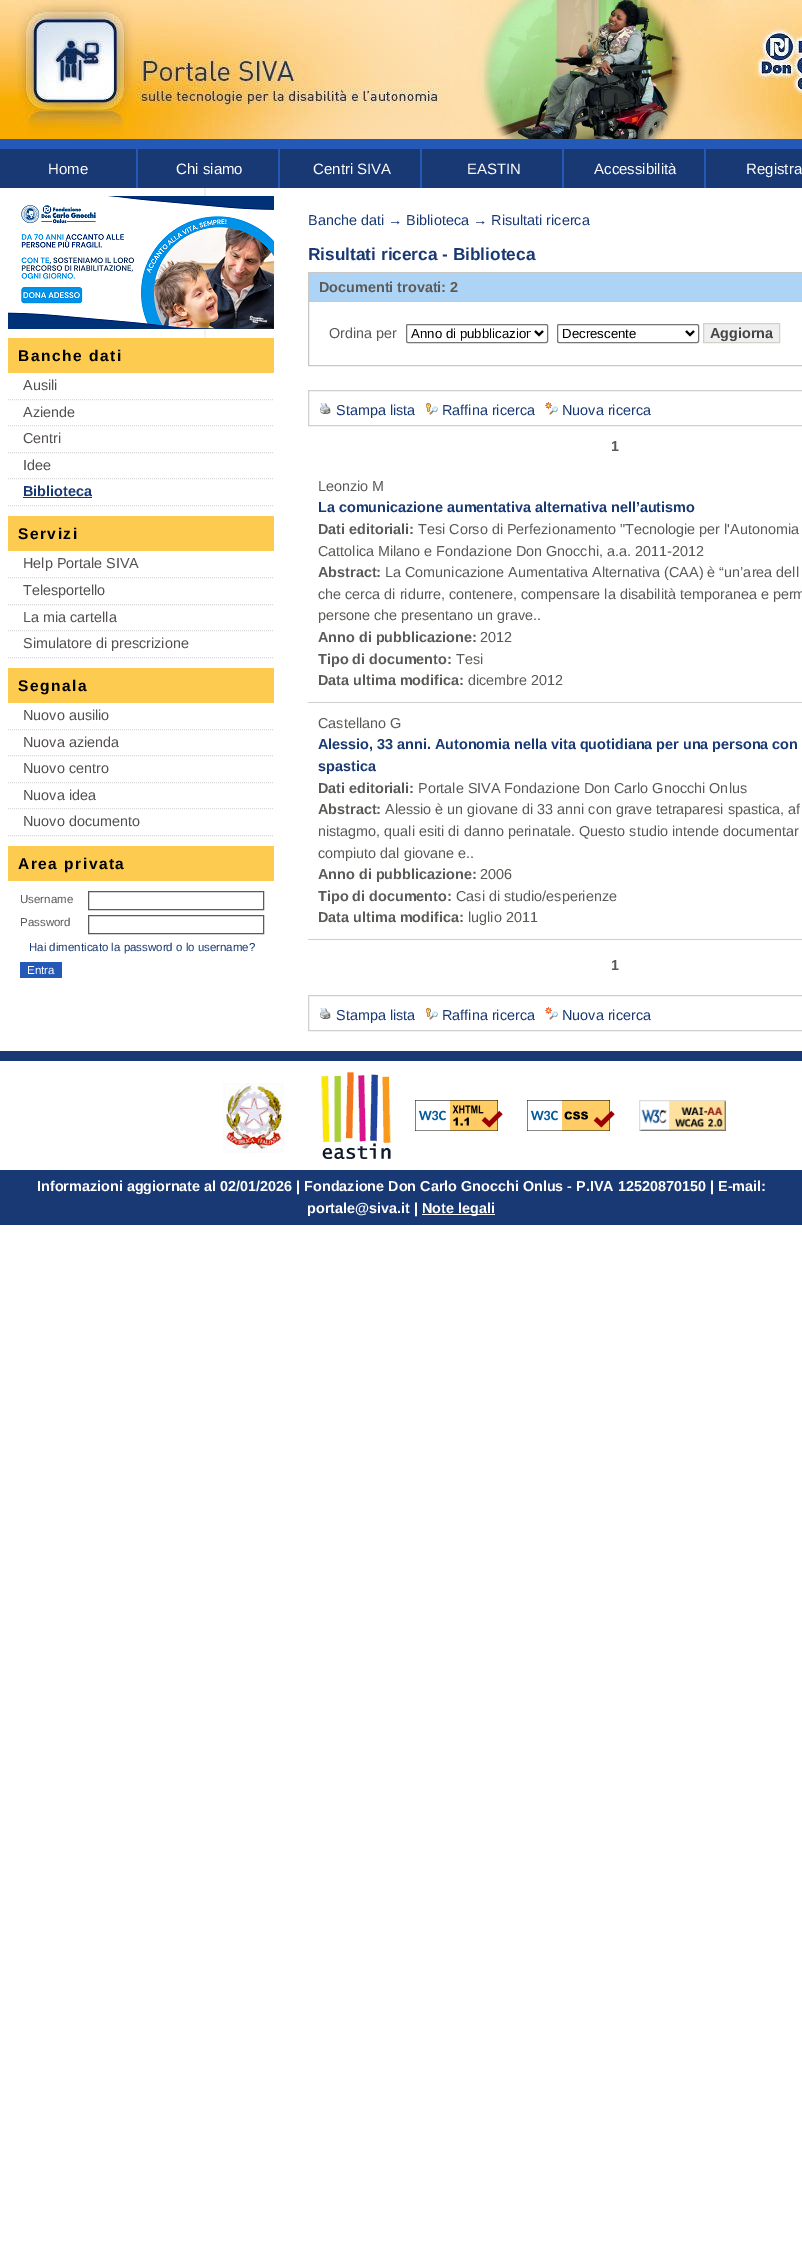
%!PS-Adobe-3.0
%%BoundingBox: 0 0 802 2261
%%LanguageLevel: 3
%%Pages: 1
%%EndComments
%%BeginProlog
/rrect { 5 dict begin { /r /h /w /y /x } { exch def } forall
  x r add y moveto x w add y 2 copy h add r arct x w add y h add x 1 index r arct
  x y h add x y r arct x y 2 copy exch w add exch r arct closepath end } def
/drawimage { 5 dict begin { /h /w /y /x /name } { exch def } forall
  gsave x y translate w h scale
  w h 8 [w 0 0 h 0 0] name (r) file false 3 colorimage grestore end } def
%%EndProlog
%%BeginSetup
<< /PageSize [802 2261] >> setpagedevice
%%EndSetup
%%Page: 1 1
0 2261 translate 1 -1 scale
4 setmiterlimit
1 setgray
0 0 802 2261 rectfill
(images/1.raw) 0 0 802 139 drawimage
0.141 0.349 0.718 setrgbcolor
0 139 802 10 rectfill
0.098 0.224 0.455 setrgbcolor
0 149 802 39 rectfill
0.141 0.349 0.718 setrgbcolor
136 149 2 39 rectfill
278 149 2 39 rectfill
420 149 2 39 rectfill
562 149 2 39 rectfill
704 149 2 39 rectfill
(images/2.raw) 204 188 2 150 drawimage
(images/3.raw) 8 196 266 133 drawimage
0.992 0.796 0.314 setrgbcolor
8 338 266 35 rectfill
0.851 0.851 0.859 setrgbcolor
[1 1] 0 setdash
newpath 8 399.5 moveto 274 399.5 lineto stroke
newpath 8 425.5 moveto 274 425.5 lineto stroke
newpath 8 452.5 moveto 274 452.5 lineto stroke
newpath 8 478.5 moveto 274 478.5 lineto stroke
newpath 8 505.5 moveto 274 505.5 lineto stroke
0.098 0.224 0.455 setrgbcolor
23 497 69 1 rectfill
0.992 0.796 0.314 setrgbcolor
8 516 266 35 rectfill
0.851 0.851 0.859 setrgbcolor
newpath 8 577.5 moveto 274 577.5 lineto stroke
newpath 8 604.5 moveto 274 604.5 lineto stroke
newpath 8 630.5 moveto 274 630.5 lineto stroke
newpath 8 657.5 moveto 274 657.5 lineto stroke
0.992 0.796 0.314 setrgbcolor
8 668 266 35 rectfill
0.851 0.851 0.859 setrgbcolor
newpath 8 729.5 moveto 274 729.5 lineto stroke
newpath 8 755.5 moveto 274 755.5 lineto stroke
newpath 8 782.5 moveto 274 782.5 lineto stroke
newpath 8 808.5 moveto 274 808.5 lineto stroke
newpath 8 835.5 moveto 274 835.5 lineto stroke
0.992 0.796 0.314 setrgbcolor
8 846 266 35 rectfill
0.357 0.353 0.345 setrgbcolor
[] 0 setdash
88.5 891.5 175 18 rectstroke
88.5 915.5 175 18 rectstroke
0.141 0.349 0.718 setrgbcolor
20 962 42 16 rectfill
0.784 setgray
308.5 272.5 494 93 rectstroke
0.682 0.831 0.961 setrgbcolor
309 273 493 28 rectfill
0.784 setgray
309 301 493 1 rectfill
0.463 setgray
406.5 324.5 141 18 1.5 rrect stroke
0 setgray
2 setlinewidth
newpath 535 331 moveto 539 335 lineto 543 331 lineto stroke
0.463 setgray
1 setlinewidth
557.5 324.5 141 18 1.5 rrect stroke
0 setgray
2 setlinewidth
newpath 686 331 moveto 690 335 lineto 694 331 lineto stroke
0.937 setgray
newpath 703.5 323.5 moveto 779.5 323.5 lineto 779.5 342.5 lineto 703.5 342.5 lineto closepath gsave fill grestore
0.831 0.82 0.792 setrgbcolor
1 setlinewidth
stroke
0.812 setgray
308.5 390.5 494 35 rectstroke
(images/4.raw) 320 403 11 11 drawimage
(images/5.raw) 426 403 12 12 drawimage
(images/6.raw) 545 402 13 13 drawimage
308 702 494 1 rectfill
308 939 494 1 rectfill
308.5 995.5 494 35 rectstroke
(images/4.raw) 320 1008 11 11 drawimage
(images/5.raw) 426 1008 12 12 drawimage
(images/6.raw) 545 1007 13 13 drawimage
0.098 0.224 0.455 setrgbcolor
0 1051 802 10 rectfill
(images/7.raw) 223 1083 61 70 drawimage
(images/8.raw) 321 1072 70 87 drawimage
(images/9.raw) 415 1100 88 31 drawimage
(images/10.raw) 527 1100 88 31 drawimage
(images/11.raw) 639 1100 87 31 drawimage
0 1170 802 55 rectfill
1 setgray
422 1214 73 1 rectfill
/LiberationSans-Regular [15 0 0 -15 0 0] selectfont
48 174 moveto (Home) show
176 174 moveto (Chi siamo) show
313 174 moveto (Centri SIVA) show
467 174 moveto (EASTIN) show
594 174 moveto (Accessibilità) show
746 174 moveto (Registra) show
/LiberationSans-Bold [15.5 0 0 -15.5 0 0] selectfont
0 setgray
18 361 moveto 1.5 0 (Banche dati) ashow
/LiberationSans-Regular [14.4 0 0 -14.4 0 0] selectfont
0.329 0.314 0.31 setrgbcolor
23 390 moveto (Ausili) show
23 417 moveto (Aziende) show
23 443 moveto (Centri) show
23 470 moveto (Idee) show
/LiberationSans-Bold [14.4 0 0 -14.4 0 0] selectfont
0.098 0.224 0.455 setrgbcolor
23 496 moveto (Biblioteca) show
/LiberationSans-Bold [15.5 0 0 -15.5 0 0] selectfont
0 setgray
18 539 moveto 1.5 0 (Servizi) ashow
/LiberationSans-Regular [14.4 0 0 -14.4 0 0] selectfont
0.329 0.314 0.31 setrgbcolor
23 568 moveto (Help Portale SIVA) show
23 595 moveto (Telesportello) show
23 622 moveto (La mia cartella) show
23 648 moveto (Simulatore di prescrizione) show
/LiberationSans-Bold [15.5 0 0 -15.5 0 0] selectfont
0 setgray
18 691 moveto 1.5 0 (Segnala) ashow
/LiberationSans-Regular [14.4 0 0 -14.4 0 0] selectfont
0.329 0.314 0.31 setrgbcolor
23 720 moveto (Nuovo ausilio) show
23 747 moveto (Nuova azienda) show
23 773 moveto (Nuovo centro) show
23 800 moveto (Nuova idea) show
23 826 moveto (Nuovo documento) show
/LiberationSans-Bold [15.5 0 0 -15.5 0 0] selectfont
0 setgray
18 869 moveto 1.5 0 (Area privata) ashow
/LiberationSans-Regular [11.5 0 0 -11.5 0 0] selectfont
0.357 0.353 0.345 setrgbcolor
20 903 moveto (Username) show
20 926 moveto (Password) show
0.098 0.224 0.455 setrgbcolor
29 951 moveto (Hai dimenticato la password o lo username?) show
1 setgray
27 974 moveto (Entra) show
/LiberationSans-Regular [14.4 0 0 -14.4 0 0] selectfont
0.098 0.224 0.455 setrgbcolor
308 225 moveto (Banche dati → Biblioteca → Risultati ricerca) show
/LiberationSans-Bold [17.25 0 0 -17.25 0 0] selectfont
308 260 moveto (Risultati ricerca - Biblioteca) show
/LiberationSans-Bold [14.4 0 0 -14.4 0 0] selectfont
0.357 0.353 0.345 setrgbcolor
319 292 moveto (Documenti trovati: 2) show
/LiberationSans-Regular [14.4 0 0 -14.4 0 0] selectfont
329 338 moveto (Ordina per) show
gsave
411 325 120 17 rectclip
/LiberationSans-Regular [13.25 0 0 -13.25 0 0] selectfont
0 setgray
411 338 moveto (Anno di pubblicazion) show
grestore
/LiberationSans-Regular [13.25 0 0 -13.25 0 0] selectfont
0 setgray
562 338 moveto (Decrescente) show
/LiberationSans-Bold [14.4 0 0 -14.4 0 0] selectfont
0.267 setgray
710 338 moveto (Aggiorna) show
/LiberationSans-Regular [14.4 0 0 -14.4 0 0] selectfont
0.098 0.224 0.455 setrgbcolor
336 415 moveto (Stampa lista) show
442 415 moveto (Raffina ricerca) show
562 415 moveto (Nuova ricerca) show
/LiberationSans-Bold [14.4 0 0 -14.4 0 0] selectfont
0.357 0.353 0.345 setrgbcolor
611 451 moveto (1) show
/LiberationSans-Regular [14.4 0 0 -14.4 0 0] selectfont
318 491 moveto (Leonzio M) show
/LiberationSans-Bold [14.4 0 0 -14.4 0 0] selectfont
0.098 0.224 0.455 setrgbcolor
318 512 moveto (La comunicazione aumentativa alternativa nell’autismo) show
0.357 0.353 0.345 setrgbcolor
318 534 moveto (Dati editoriali:) show
/LiberationSans-Regular [14.4 0 0 -14.4 0 0] selectfont
418 534 moveto (Tesi Corso di Perfezionamento "Tecnologie per l'Autonomia) show
318 556 moveto (Cattolica Milano e Fondazione Don Gnocchi, a.a. 2011-2012) show
/LiberationSans-Bold [14.4 0 0 -14.4 0 0] selectfont
318 577 moveto (Abstract:) show
/LiberationSans-Regular [14.4 0 0 -14.4 0 0] selectfont
385 577 moveto (La Comunicazione Aumentativa Alternativa \(CAA\) è “un’area dell) show
318 599 moveto (che cerca di ridurre, contenere, compensare la disabilità temporanea e perm) show
318 620 moveto (persone che presentano un grave..) show
/LiberationSans-Bold [14.4 0 0 -14.4 0 0] selectfont
318 642 moveto (Anno di pubblicazione:) show
/LiberationSans-Regular [14.4 0 0 -14.4 0 0] selectfont
480 642 moveto (2012) show
/LiberationSans-Bold [14.4 0 0 -14.4 0 0] selectfont
318 664 moveto (Tipo di documento:) show
/LiberationSans-Regular [14.4 0 0 -14.4 0 0] selectfont
456 664 moveto (Tesi) show
/LiberationSans-Bold [14.4 0 0 -14.4 0 0] selectfont
318 685 moveto (Data ultima modifica:) show
/LiberationSans-Regular [14.4 0 0 -14.4 0 0] selectfont
468 685 moveto (dicembre 2012) show
318 728 moveto (Castellano G) show
/LiberationSans-Bold [14.4 0 0 -14.4 0 0] selectfont
0.098 0.224 0.455 setrgbcolor
318 749 moveto (Alessio, 33 anni. Autonomia nella vita quotidiana per una persona con) show
318 771 moveto (spastica) show
0.357 0.353 0.345 setrgbcolor
318 793 moveto (Dati editoriali:) show
/LiberationSans-Regular [14.4 0 0 -14.4 0 0] selectfont
418 793 moveto (Portale SIVA Fondazione Don Carlo Gnocchi Onlus) show
/LiberationSans-Bold [14.4 0 0 -14.4 0 0] selectfont
318 814 moveto (Abstract:) show
/LiberationSans-Regular [14.4 0 0 -14.4 0 0] selectfont
385 814 moveto (Alessio è un giovane di 33 anni con grave tetraparesi spastica, af) show
318 836 moveto (nistagmo, quali esiti di danno perinatale. Questo studio intende documentar) show
318 858 moveto (compiuto dal giovane e..) show
/LiberationSans-Bold [14.4 0 0 -14.4 0 0] selectfont
318 879 moveto (Anno di pubblicazione:) show
/LiberationSans-Regular [14.4 0 0 -14.4 0 0] selectfont
480 879 moveto (2006) show
/LiberationSans-Bold [14.4 0 0 -14.4 0 0] selectfont
318 901 moveto (Tipo di documento:) show
/LiberationSans-Regular [14.4 0 0 -14.4 0 0] selectfont
456 901 moveto (Casi di studio/esperienze) show
/LiberationSans-Bold [14.4 0 0 -14.4 0 0] selectfont
318 922 moveto (Data ultima modifica:) show
/LiberationSans-Regular [14.4 0 0 -14.4 0 0] selectfont
468 922 moveto (luglio 2011) show
/LiberationSans-Bold [14.4 0 0 -14.4 0 0] selectfont
611 970 moveto (1) show
/LiberationSans-Regular [14.4 0 0 -14.4 0 0] selectfont
0.098 0.224 0.455 setrgbcolor
336 1020 moveto (Stampa lista) show
442 1020 moveto (Raffina ricerca) show
562 1020 moveto (Nuova ricerca) show
/LiberationSans-Bold [14.4 0 0 -14.4 0 0] selectfont
1 setgray
37 1191 moveto (Informazioni aggiornate al 02/01/2026 | Fondazione Don Carlo Gnocchi Onlus - P.IVA 12520870150 | E-mail:) show
307 1213 moveto (portale@siva.it |) show
422 1213 moveto (Note legali) show
showpage
%%EOF
